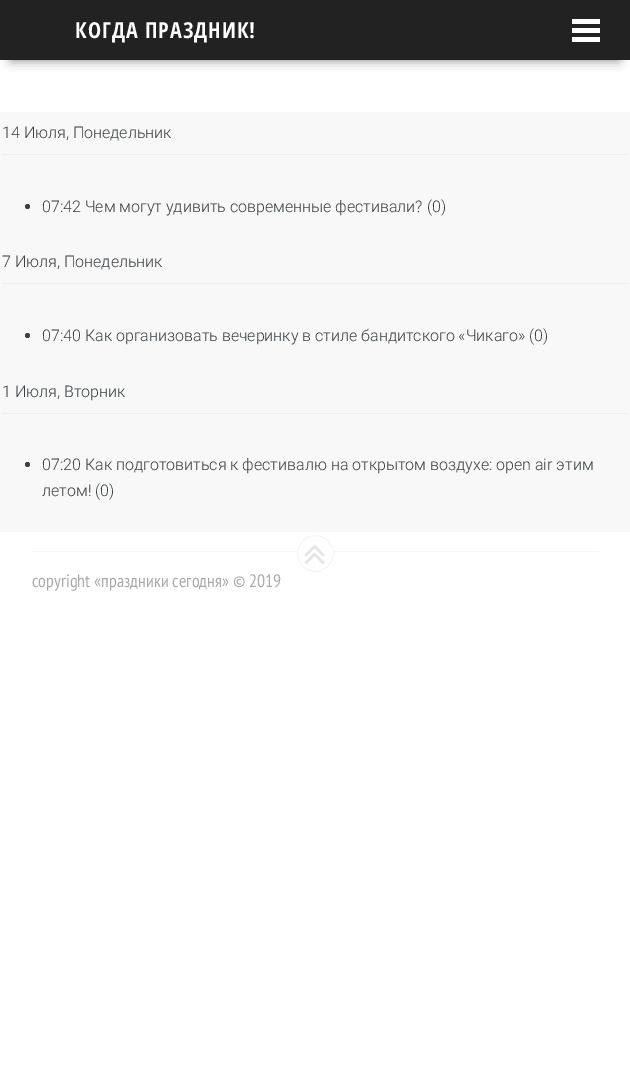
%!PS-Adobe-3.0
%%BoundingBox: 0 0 630 1077
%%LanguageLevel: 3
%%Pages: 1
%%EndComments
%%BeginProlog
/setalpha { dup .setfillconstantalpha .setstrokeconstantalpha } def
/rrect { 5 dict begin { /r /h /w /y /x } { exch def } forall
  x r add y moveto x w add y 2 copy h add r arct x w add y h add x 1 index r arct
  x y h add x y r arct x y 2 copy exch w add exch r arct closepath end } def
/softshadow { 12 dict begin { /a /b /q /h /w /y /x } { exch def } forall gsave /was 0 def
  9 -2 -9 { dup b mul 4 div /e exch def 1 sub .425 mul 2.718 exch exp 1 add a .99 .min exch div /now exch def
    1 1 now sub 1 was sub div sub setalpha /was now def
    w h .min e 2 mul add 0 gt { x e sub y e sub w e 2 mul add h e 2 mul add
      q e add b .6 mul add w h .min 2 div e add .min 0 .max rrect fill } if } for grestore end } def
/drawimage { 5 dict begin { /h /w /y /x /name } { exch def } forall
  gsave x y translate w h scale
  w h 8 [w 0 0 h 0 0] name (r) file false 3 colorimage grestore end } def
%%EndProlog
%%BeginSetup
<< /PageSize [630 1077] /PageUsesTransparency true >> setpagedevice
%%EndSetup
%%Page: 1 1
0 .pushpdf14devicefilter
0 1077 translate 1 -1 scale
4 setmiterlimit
1 setgray
0 0 630 1077 rectfill
0 setgray
11 22 608 38 0 5.5 0.5 softshadow
0.133 setgray
0 0 630 60 rectfill
1 setgray
572 19 28 5 rectfill
572 28 28 5 rectfill
572 37 28 5 rectfill
0.973 setgray
0 112 630 420 rectfill
0.937 setgray
2 154 626 1 rectfill
0.227 0.255 0.271 setrgbcolor
newpath 27.5 206.5 2.5 0 360 arc closepath fill
0.937 setgray
2 283 626 1 rectfill
0.227 0.255 0.271 setrgbcolor
newpath 27.5 335.5 2.5 0 360 arc closepath fill
0.937 setgray
2 413 626 1 rectfill
0.227 0.255 0.271 setrgbcolor
newpath 27.5 464.5 2.5 0 360 arc closepath fill
0.961 setgray
32 551 567 1 rectfill
1 setgray
newpath 315.5 553.5 18 0 360 arc closepath gsave fill grestore
0.961 setgray
stroke
(images/1.raw) 304 545 21 19 drawimage
/OpenSansCondensed-Bold [22 0 0 -22 0 0] selectfont
1 setgray
75 38 moveto 1 0 (КОГДА ПРАЗДНИК!) ashow
/Roboto-Light [16 0 0 -16 0 0] selectfont
0.227 0.255 0.271 setrgbcolor
2 138 moveto (14 Июля, Понедельник) show
42 212 moveto (07:42 Чем могут удивить современные фестивали? \(0\)) show
2 267 moveto (7 Июля, Понедельник) show
42 341 moveto (07:40 Как организовать вечеринку в стиле бандитского «Чикаго» \(0\)) show
2 397 moveto (1 Июля, Вторник) show
42 470 moveto (07:20 Как подготовиться к фестивалю на открытом воздухе: open air этим) show
42 496 moveto (летом! \(0\)) show
/PTSansNarrow-Regular [18 0 0 -18 0 0] selectfont
0.667 setgray
32 587 moveto (copyright «праздники сегодня» © 2019) show
.poppdf14devicefilter showpage
%%EOF
